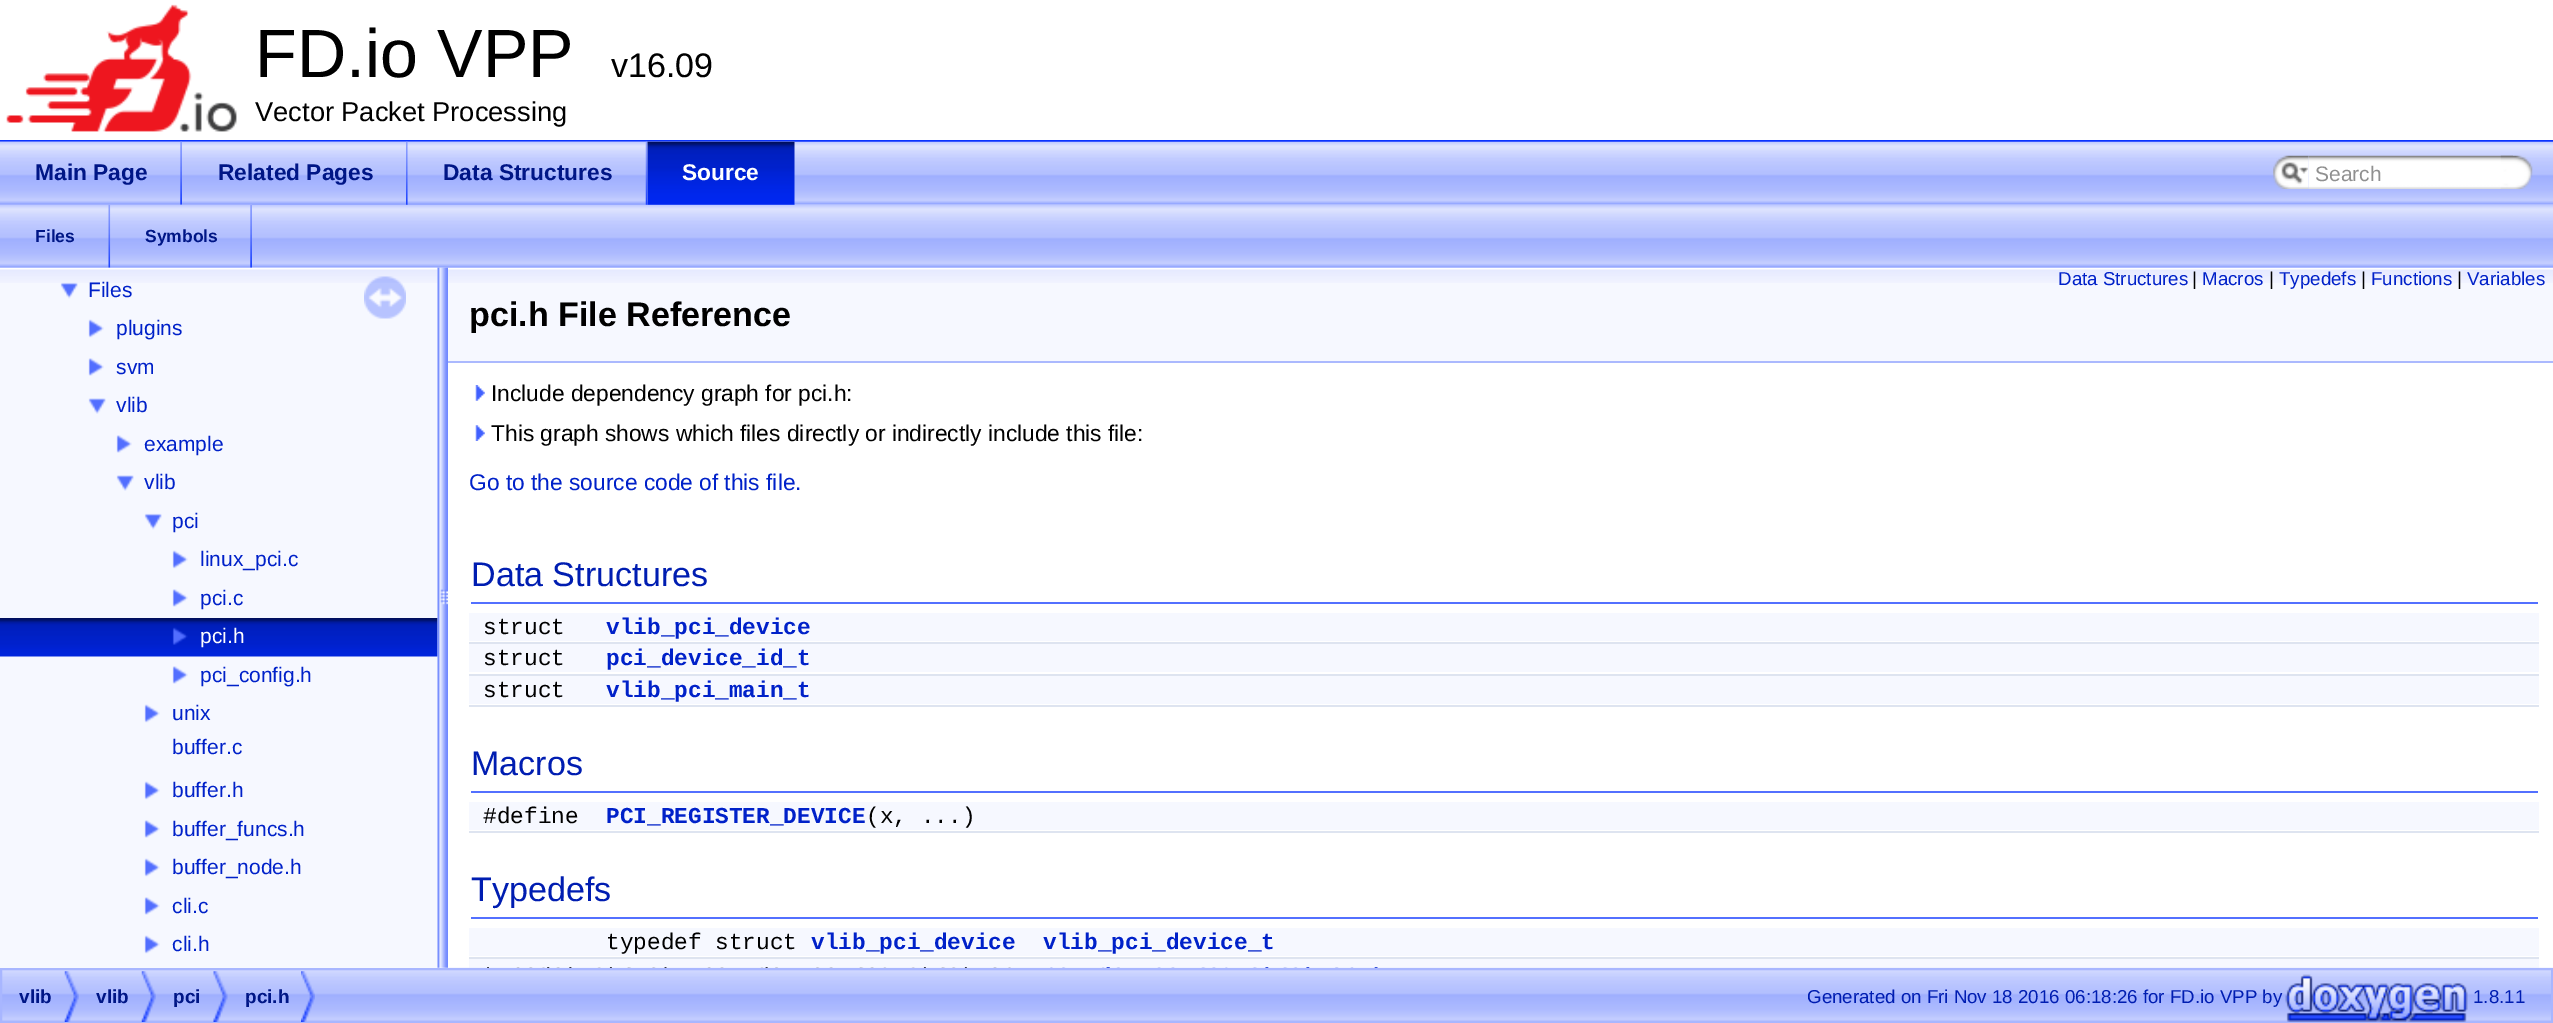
%!PS-Adobe-3.0
%%BoundingBox: 0 0 2553 1023
%%LanguageLevel: 3
%%Pages: 1
%%EndComments
%%BeginProlog
/drawimage { 5 dict begin { /h /w /y /x /name } { exch def } forall
  gsave x y translate w h scale
  w h 8 [w 0 0 h 0 0] name (r) file false 3 colorimage grestore end } def
%%EndProlog
%%BeginSetup
<< /PageSize [2553 1023] >> setpagedevice
%%EndSetup
%%Page: 1 1
0 1023 translate 1 -1 scale
4 setmiterlimit
1 setgray
0 0 2553 1023 rectfill
0.035 0.196 1 setrgbcolor
0 140 2553 2 rectfill
(images/1.raw) 6 4 231 128 drawimage
(images/2.raw) 0 141 2553 64 drawimage
(images/15.raw) 0 204 2553 64 drawimage
(images/3.raw) 0 141 182 64 drawimage
(images/4.raw) 180 141 2 64 drawimage
(images/5.raw) 182 141 226 64 drawimage
(images/6.raw) 406 141 2 64 drawimage
(images/7.raw) 407 141 241 64 drawimage
(images/8.raw) 645 141 3 64 drawimage
(images/9.raw) 647 141 148 64 drawimage
(images/10.raw) 647 141 148 64 drawimage
(images/11.raw) 2273 155 36 34 drawimage
(images/12.raw) 2281 162 28 22 drawimage
(images/13.raw) 2308 155 205 34 drawimage
(images/14.raw) 2500 155 33 34 drawimage
(images/16.raw) 0 204 111 64 drawimage
(images/17.raw) 108 204 3 64 drawimage
(images/18.raw) 110 204 142 64 drawimage
(images/19.raw) 250 204 2 64 drawimage
0.965 0.973 1 setrgbcolor
469 959 2070 9 rectfill
(images/36.raw) 2 967 2551 55 drawimage
0 268 438 700 rectfill
(images/20.raw) 0 267 438 16 drawimage
(images/21.raw) 60 282 18 17 drawimage
(images/22.raw) 88 319 16 19 drawimage
(images/23.raw) 88 358 16 18 drawimage
(images/24.raw) 88 398 18 16 drawimage
(images/25.raw) 116 435 16 18 drawimage
(images/26.raw) 116 475 18 16 drawimage
(images/27.raw) 144 513 18 17 drawimage
(images/22.raw) 172 550 16 19 drawimage
(images/23.raw) 172 589 16 18 drawimage
(images/28.raw) 0 618 438 39 drawimage
(images/29.raw) 172 627 16 18 drawimage
(images/23.raw) 172 666 16 18 drawimage
(images/30.raw) 144 704 16 19 drawimage
(images/30.raw) 144 781 16 19 drawimage
(images/25.raw) 144 820 16 18 drawimage
(images/30.raw) 144 858 16 19 drawimage
(images/25.raw) 144 897 16 18 drawimage
(images/30.raw) 144 935 16 19 drawimage
(images/31.raw) 364 276 42 43 drawimage
(images/32.raw) 437 267 11 701 drawimage
448 283 2105 78 rectfill
(images/33.raw) 448 267 2105 16 drawimage
0.671 0.725 0.996 setrgbcolor
448 361 2105 2 rectfill
(images/34.raw) 475 385 10 16 drawimage
(images/35.raw) 475 425 10 16 drawimage
0.325 0.439 1 setrgbcolor
471 602 2067 2 rectfill
0.965 0.973 1 setrgbcolor
469 613 2070 28 rectfill
0.871 0.894 0.941 setrgbcolor
469 642 2070 2 rectfill
0.965 0.973 1 setrgbcolor
469 644 2070 28 rectfill
0.871 0.894 0.941 setrgbcolor
469 674 2070 2 rectfill
0.965 0.973 1 setrgbcolor
469 676 2070 28 rectfill
0.871 0.894 0.941 setrgbcolor
469 705 2070 2 rectfill
0.325 0.439 1 setrgbcolor
471 791 2067 2 rectfill
0.965 0.973 1 setrgbcolor
469 802 2070 28 rectfill
0.871 0.894 0.941 setrgbcolor
469 831 2070 2 rectfill
0.325 0.439 1 setrgbcolor
471 917 2067 2 rectfill
0.965 0.973 1 setrgbcolor
469 928 2070 28 rectfill
0.871 0.894 0.941 setrgbcolor
469 957 2070 2 rectfill
0.659 0.714 1 setrgbcolor
2 setlinewidth
1 969 2551 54 rectstroke
(images/37.raw) 64 971 15 51 drawimage
(images/37.raw) 141 971 15 51 drawimage
(images/38.raw) 213 971 15 51 drawimage
(images/39.raw) 301 971 14 51 drawimage
(images/40.raw) 2285 974 183 48 drawimage
/LiberationSans-Regular [68.25 0 0 -68.25 0 0] selectfont
0 setgray
255 77 moveto (FD.io VPP) show
/LiberationSans-Regular [34.1 0 0 -34.1 0 0] selectfont
611 77 moveto (v16.09) show
/LiberationSans-Regular [27.25 0 0 -27.25 0 0] selectfont
255 121 moveto (Vector Packet Processing) show
/LiberationSans-Bold [22.75 0 0 -22.75 0 0] selectfont
0 0.086 0.525 setrgbcolor
35 180 moveto (Main Page) show
218 180 moveto (Related Pages) show
443 180 moveto (Data Structures) show
1 setgray
682 180 moveto (Source) show
/LiberationSans-Regular [21 0 0 -21 0 0] selectfont
0.565 setgray
2315 181 moveto (Search) show
/LiberationSans-Bold [17.5 0 0 -17.5 0 0] selectfont
0 0.086 0.525 setrgbcolor
35 242 moveto (Files) show
145 242 moveto (Symbols) show
/LiberationSans-Regular [21 0 0 -21 0 0] selectfont
0 0.129 0.788 setrgbcolor
88 297 moveto (Files) show
116 335 moveto (plugins) show
116 374 moveto (svm) show
116 412 moveto (vlib) show
144 451 moveto (example) show
144 489 moveto (vlib) show
172 528 moveto (pci) show
200 566 moveto (linux_pci.c) show
200 605 moveto (pci.c) show
1 setgray
200 643 moveto (pci.h) show
0 0.129 0.788 setrgbcolor
200 682 moveto (pci_config.h) show
172 720 moveto (unix) show
172 754 moveto (buffer.c) show
172 797 moveto (buffer.h) show
172 836 moveto (buffer_funcs.h) show
172 874 moveto (buffer_node.h) show
172 913 moveto (cli.c) show
172 951 moveto (cli.h) show
/LiberationSans-Regular [18.7 0 0 -18.7 0 0] selectfont
2058 285 moveto (Data Structures) show
0 setgray
2192 285 moveto (|) show
0 0.129 0.788 setrgbcolor
2202 285 moveto (Macros) show
0 setgray
2269 285 moveto (|) show
0 0.129 0.788 setrgbcolor
2279 285 moveto (Typedefs) show
0 setgray
2361 285 moveto (|) show
0 0.129 0.788 setrgbcolor
2371 285 moveto (Functions) show
0 setgray
2457 285 moveto (|) show
0 0.129 0.788 setrgbcolor
2467 285 moveto (Variables) show
/LiberationSans-Bold [34.1 0 0 -34.1 0 0] selectfont
0 setgray
469 326 moveto (pci.h File Reference) show
/LiberationSans-Regular [22.75 0 0 -22.75 0 0] selectfont
491 401 moveto (Include dependency graph for pci.h:) show
491 441 moveto (This graph shows which files directly or indirectly include this file:) show
0 0.129 0.788 setrgbcolor
469 490 moveto (Go to the source code of this file.) show
/LiberationSans-Regular [34.1 0 0 -34.1 0 0] selectfont
0 0.114 0.694 setrgbcolor
471 586 moveto (Data Structures) show
/LiberationMono-Regular [22.75 0 0 -22.75 0 0] selectfont
0 setgray
483 634 moveto (struct) show
/LiberationMono-Bold [22.75 0 0 -22.75 0 0] selectfont
0 0.129 0.788 setrgbcolor
606 634 moveto (vlib_pci_device) show
/LiberationMono-Regular [22.75 0 0 -22.75 0 0] selectfont
0 setgray
483 665 moveto (struct) show
/LiberationMono-Bold [22.75 0 0 -22.75 0 0] selectfont
0 0.129 0.788 setrgbcolor
606 665 moveto (pci_device_id_t) show
/LiberationMono-Regular [22.75 0 0 -22.75 0 0] selectfont
0 setgray
483 697 moveto (struct) show
/LiberationMono-Bold [22.75 0 0 -22.75 0 0] selectfont
0 0.129 0.788 setrgbcolor
606 697 moveto (vlib_pci_main_t) show
/LiberationSans-Regular [34.1 0 0 -34.1 0 0] selectfont
0 0.114 0.694 setrgbcolor
471 775 moveto (Macros) show
/LiberationMono-Regular [22.75 0 0 -22.75 0 0] selectfont
0 setgray
483 823 moveto (#define) show
/LiberationMono-Bold [22.75 0 0 -22.75 0 0] selectfont
0 0.129 0.788 setrgbcolor
606 823 moveto (PCI_REGISTER_DEVICE) show
/LiberationMono-Regular [22.75 0 0 -22.75 0 0] selectfont
0 setgray
866 823 moveto (\(x, ...\)) show
/LiberationSans-Regular [34.1 0 0 -34.1 0 0] selectfont
0 0.114 0.694 setrgbcolor
471 901 moveto (Typedefs) show
/LiberationMono-Regular [22.75 0 0 -22.75 0 0] selectfont
0 setgray
606 949 moveto (typedef struct) show
/LiberationMono-Bold [22.75 0 0 -22.75 0 0] selectfont
0 0.129 0.788 setrgbcolor
811 949 moveto (vlib_pci_device) show
1043 949 moveto (vlib_pci_device_t) show
/LiberationSans-Bold [19 0 0 -19 0 0] selectfont
0 0.086 0.525 setrgbcolor
19 1003 moveto (vlib) show
96 1003 moveto (vlib) show
173 1003 moveto (pci) show
245 1003 moveto (pci.h) show
/LiberationSans-Regular [18.7 0 0 -18.7 0 0] selectfont
0 0.114 0.694 setrgbcolor
1807 1003 moveto (Generated on Fri Nov 18 2016 06:18:26 for FD.io VPP by) show
2473 1003 moveto (1.8.11) show
showpage
%%EOF
